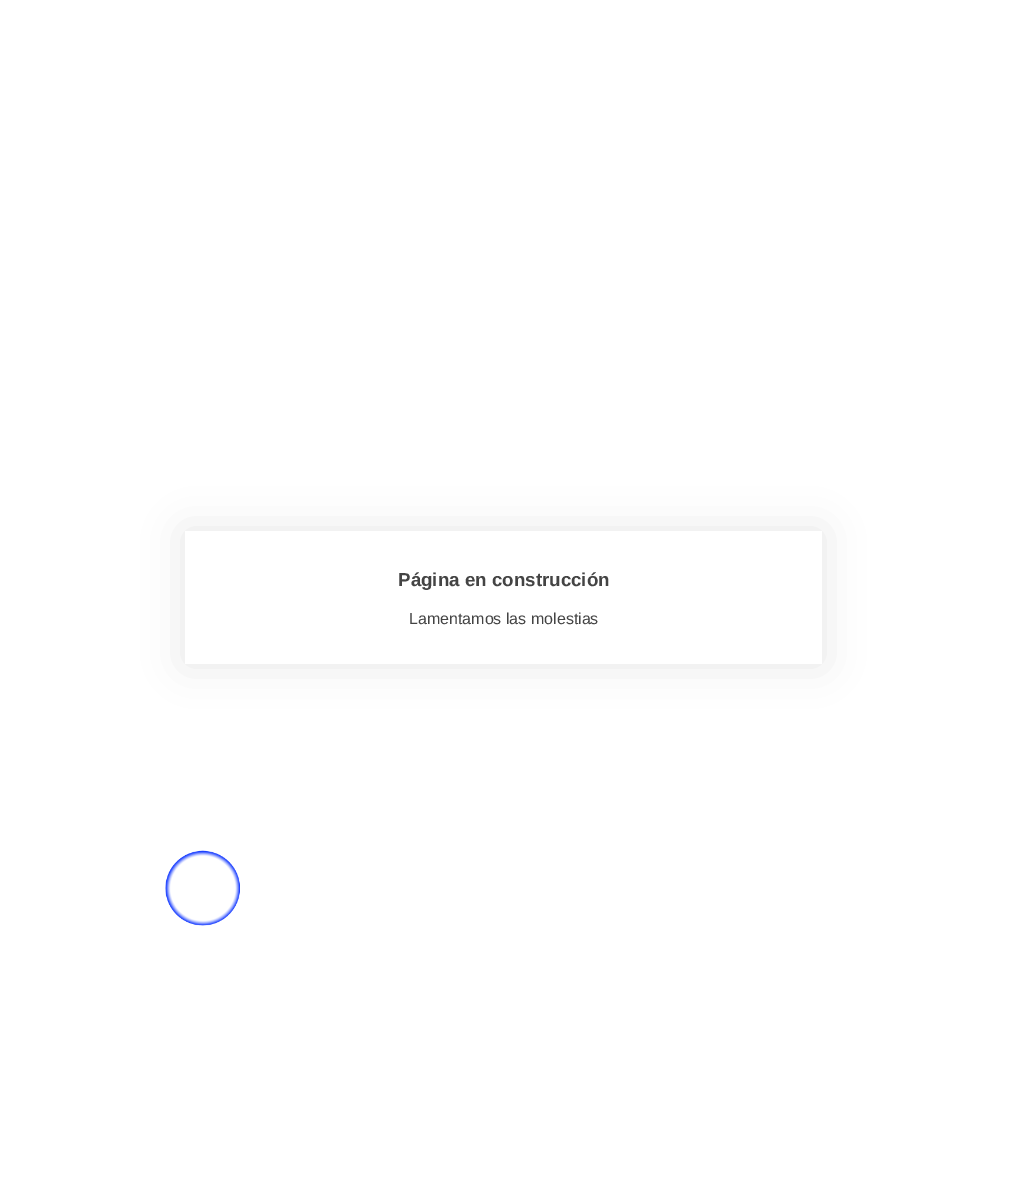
%!PS-Adobe-3.0
%%BoundingBox: 0 0 1028 1194
%%LanguageLevel: 3
%%Pages: 1
%%EndComments
%%BeginProlog
/setalpha { dup .setfillconstantalpha .setstrokeconstantalpha } def
/rrect { 5 dict begin { /r /h /w /y /x } { exch def } forall
  x r add y moveto x w add y 2 copy h add r arct x w add y h add x 1 index r arct
  x y h add x y r arct x y 2 copy exch w add exch r arct closepath end } def
/softshadow { 12 dict begin { /a /b /q /h /w /y /x } { exch def } forall gsave /was 0 def
  9 -2 -9 { dup b mul 4 div /e exch def 1 sub .425 mul 2.718 exch exp 1 add a .99 .min exch div /now exch def
    1 1 now sub 1 was sub div sub setalpha /was now def
    w h .min e 2 mul add 0 gt { x e sub y e sub w e 2 mul add h e 2 mul add
      q e add b .6 mul add w h .min 2 div e add .min 0 .max rrect fill } if } for grestore end } def
/drawimage { 5 dict begin { /h /w /y /x /name } { exch def } forall
  gsave x y translate w h scale
  w h 8 [w 0 0 h 0 0] name (r) file false 3 colorimage grestore end } def
%%EndProlog
%%BeginSetup
<< /PageSize [1028 1194] /PageUsesTransparency true >> setpagedevice
%%EndSetup
%%Page: 1 1
0 .pushpdf14devicefilter
0 1194 translate 1 -1 scale
4 setmiterlimit
1 setgray
0 0 1028 1194 rectfill
gsave
newpath 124 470 moveto 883 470 lineto 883 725 lineto 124 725 lineto closepath 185 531 moveto 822 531 lineto 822 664 lineto 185 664 lineto closepath eoclip newpath
0 setgray
185 531 637 133 0 20 0.1 softshadow
grestore
(images/1.raw) 165 850 75 76 drawimage
/LiberationSans-Bold [18.75 0 0 -18.75 0 0] selectfont
0.267 setgray
398 586 moveto (Página en construcción) show
/LiberationSans-Regular [16 0 0 -16 0 0] selectfont
409 624 moveto (Lamentamos las molestias) show
.poppdf14devicefilter showpage
%%EOF
